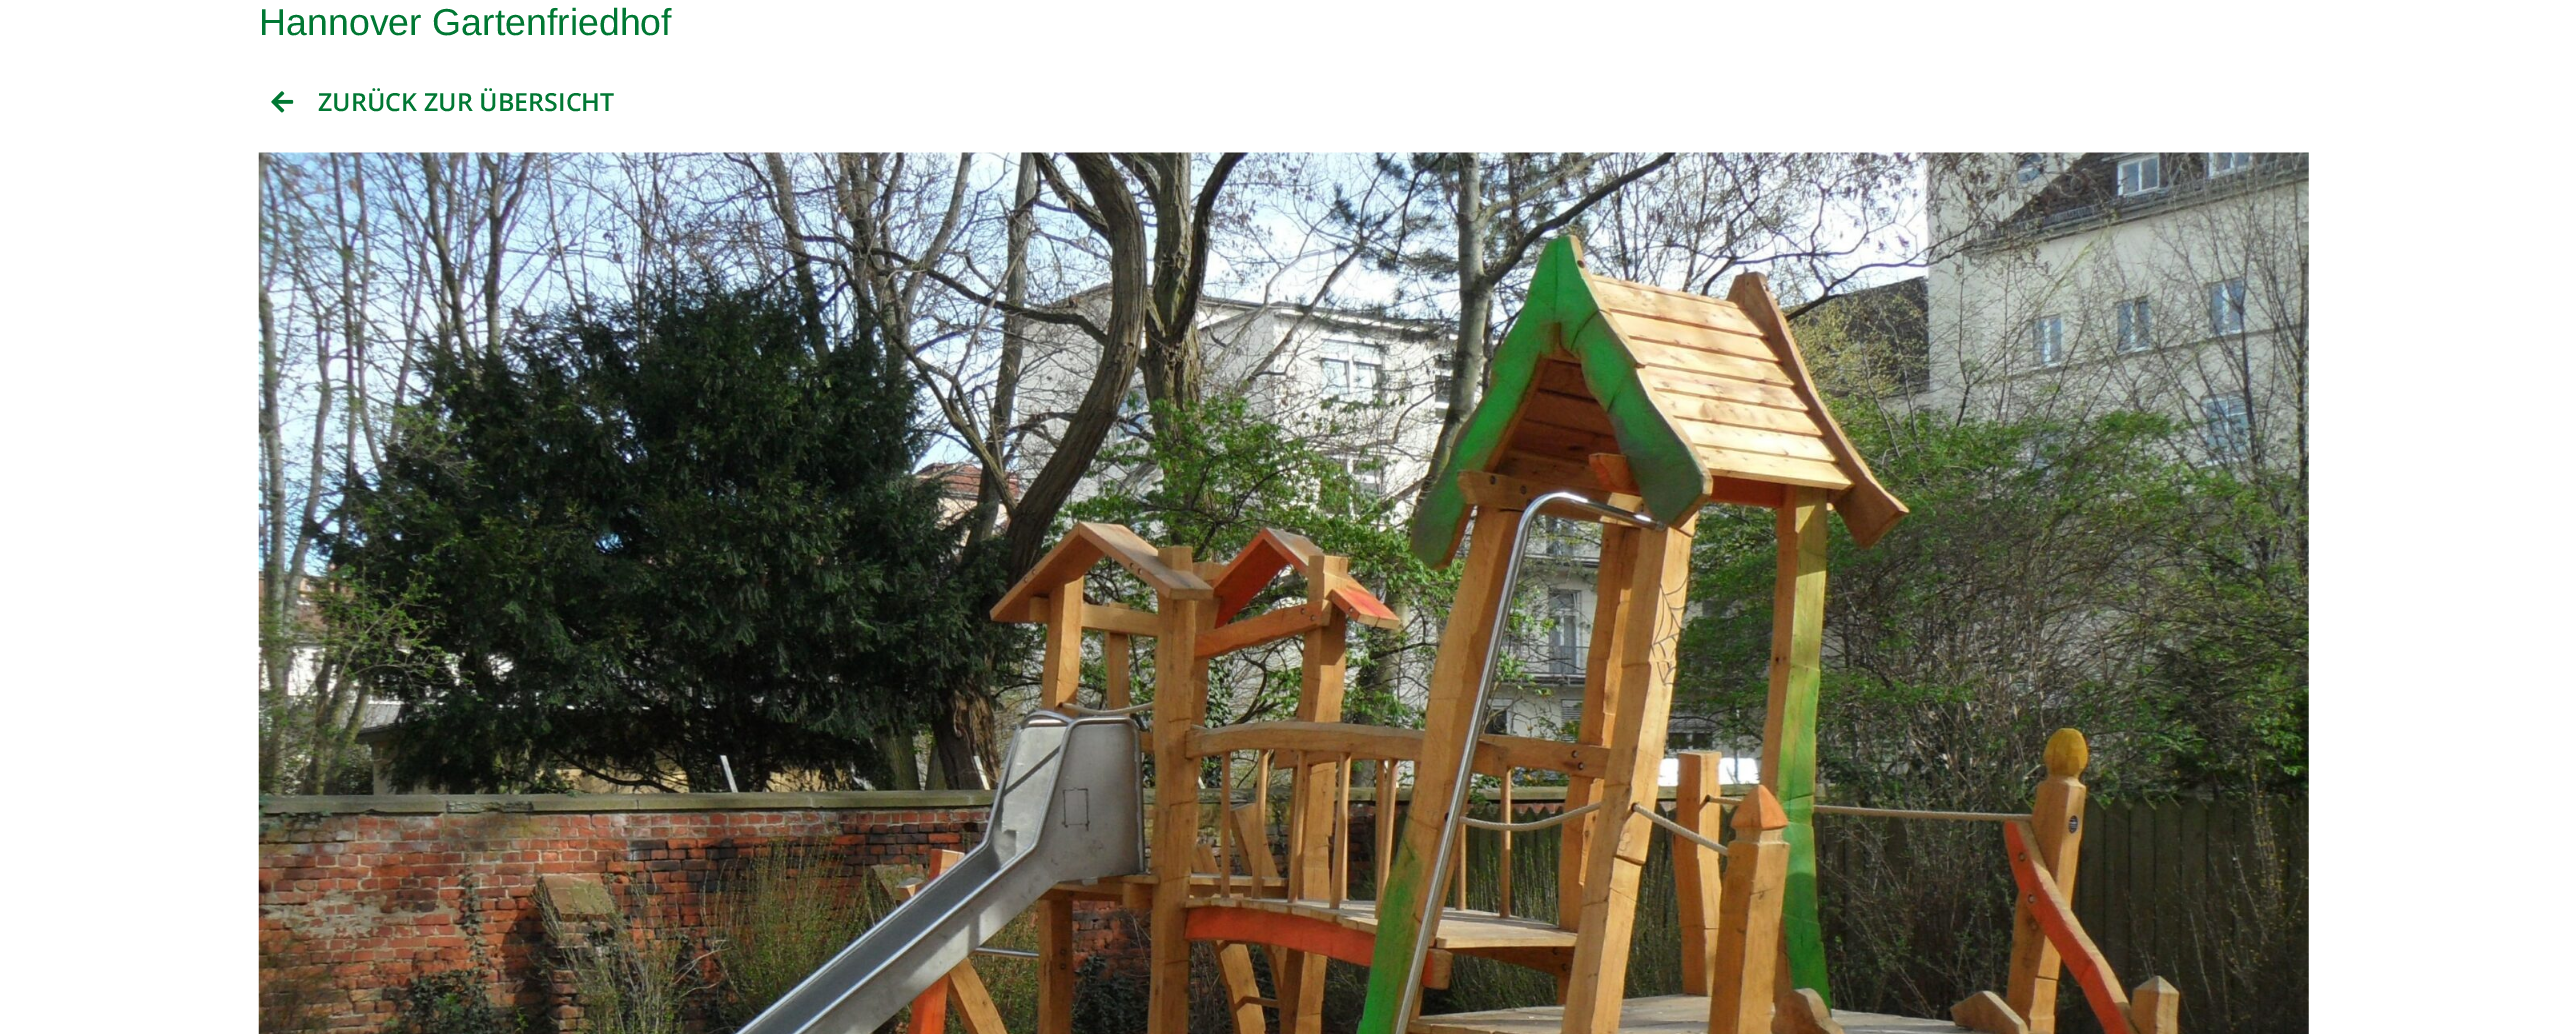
%!PS-Adobe-3.0
%%BoundingBox: 0 0 2567 1034
%%LanguageLevel: 3
%%Pages: 1
%%EndComments
%%BeginProlog
/drawimage { 5 dict begin { /h /w /y /x /name } { exch def } forall
  gsave x y translate w h scale
  w h 8 [w 0 0 h 0 0] name (r) file false 3 colorimage grestore end } def
%%EndProlog
%%BeginSetup
<< /PageSize [2567 1034] >> setpagedevice
%%EndSetup
%%Page: 1 1
0 1034 translate 1 -1 scale
4 setmiterlimit
1 setgray
0 0 2567 1034 rectfill
(images/1.raw) 271 91 23 22 drawimage
(images/2.raw) 258 152 2051 882 drawimage
/LiberationSans-Regular [37.5 0 0 -37.5 0 0] selectfont
0 0.471 0.2 setrgbcolor
259 35 moveto (Hannover Gartenfriedhof) show
/OpenSans-SemiBold [25 0 0 -25 0 0] selectfont
318 111 moveto (ZURÜCK ZUR ÜBERSICHT) show
showpage
%%EOF
